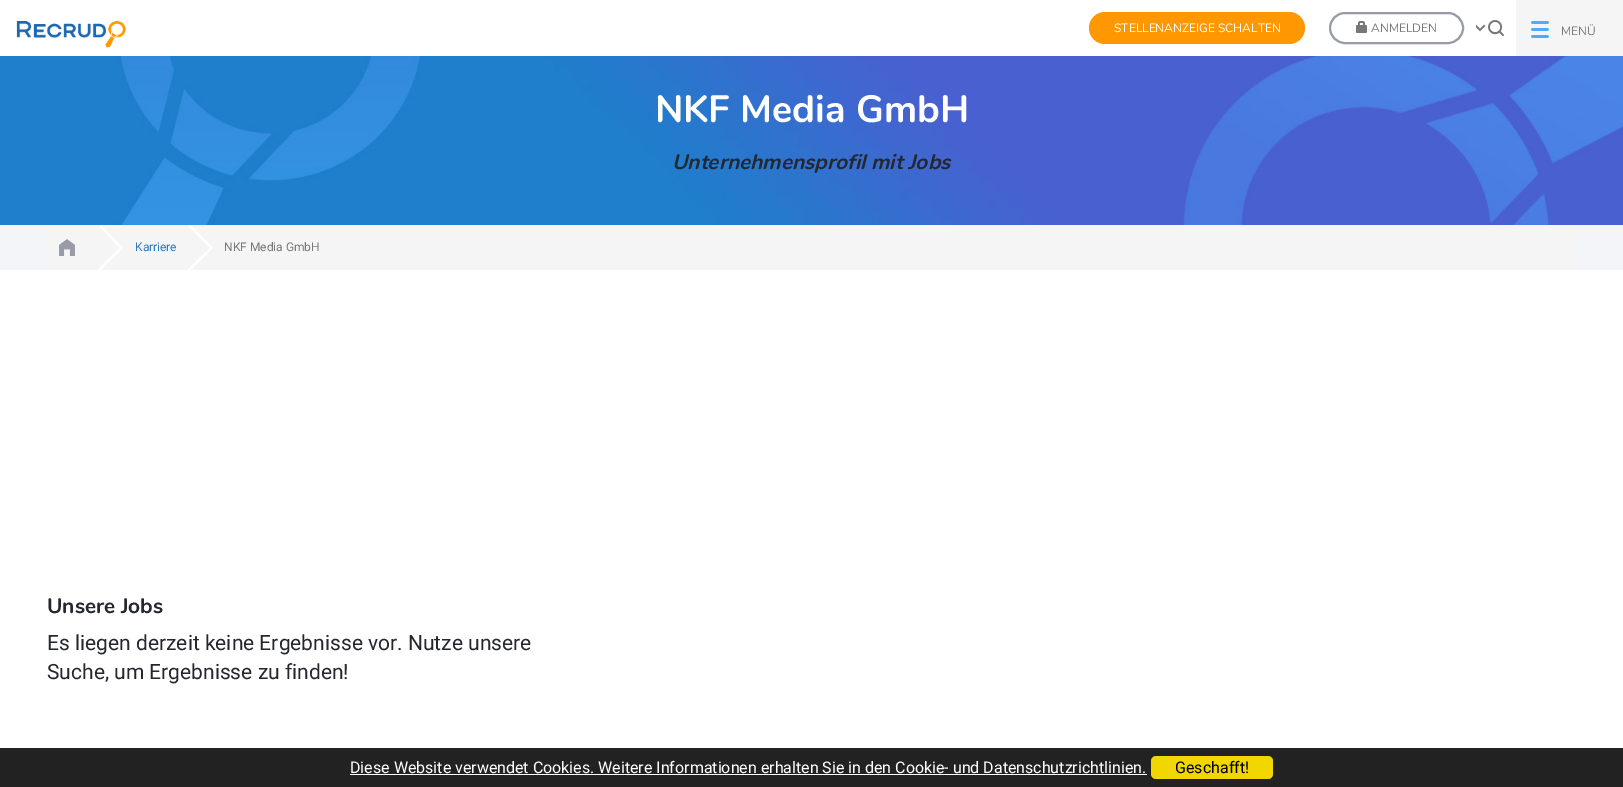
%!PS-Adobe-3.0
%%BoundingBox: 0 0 1623 787
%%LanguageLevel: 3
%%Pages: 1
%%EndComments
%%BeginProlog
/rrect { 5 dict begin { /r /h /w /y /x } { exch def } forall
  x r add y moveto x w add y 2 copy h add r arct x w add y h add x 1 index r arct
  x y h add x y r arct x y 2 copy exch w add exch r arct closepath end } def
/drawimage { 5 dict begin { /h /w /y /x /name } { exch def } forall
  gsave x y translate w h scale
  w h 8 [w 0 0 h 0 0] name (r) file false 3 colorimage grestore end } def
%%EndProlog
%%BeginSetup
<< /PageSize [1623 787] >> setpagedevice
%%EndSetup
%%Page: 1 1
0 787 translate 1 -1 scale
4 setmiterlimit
1 setgray
0 0 1623 787 rectfill
(images/1.raw) 16 21 110 27 drawimage
1 0.596 0 setrgbcolor
1089 12 216 32 16 rrect fill
0.592 0.612 0.655 setrgbcolor
2 setlinewidth
1330 13 133 30 15 rrect stroke
(images/2.raw) 1356 21 11 12 drawimage
(images/3.raw) 1476 20 28 16 drawimage
0.961 setgray
1516 0 107 56 rectfill
(images/4.raw) 1531 21 18 17 drawimage
(images/5.raw) 0 56 1623 169 drawimage
0.957 0.961 0.973 setrgbcolor
0 225 1623 45 rectfill
0.961 setgray
47 225 1530 45 rectfill
(images/6.raw) 59 239 16 17 drawimage
gsave
47 225 1530 45 rectclip
1 setgray
newpath 100 224 moveto 99 226 lineto 120 248 lineto 98 269 lineto 100 271 lineto 123 248 lineto closepath fill
newpath 190 224 moveto 188 226 lineto 210 248 lineto 188 269 lineto 190 271 lineto 213 248 lineto closepath fill
grestore
0.133 setgray
0 748 1623 39 rectfill
1 setgray
350 774 797 1 rectfill
0.945 0.839 0 setrgbcolor
1151 756 122 23 5 rrect fill
/Nunito-Regular [12 0 0 -12 0 0] selectfont
1 setgray
1114 32 moveto (STELLENANZEIGE SCHALTEN) show
0.467 setgray
1371 32 moveto (ANMELDEN) show
1561 35 moveto (MENÜ) show
/Nunito-Bold [38 0 0 -38 0 0] selectfont
1 setgray
655 122 moveto (NKF Media GmbH) show
/Nunito-BoldItalic [21 0 0 -21 0 0] selectfont
0.141 0.153 0.18 setrgbcolor
672 169 moveto (Unternehmensprofil mit Jobs) show
/Roboto-Regular [12 0 0 -12 0 0] selectfont
0.2 0.478 0.718 setrgbcolor
135 251 moveto (Karriere) show
0.467 setgray
224 251 moveto (NKF Media GmbH) show
/Nunito-Bold [21 0 0 -21 0 0] selectfont
0.141 0.153 0.18 setrgbcolor
47 613 moveto (Unsere Jobs) show
/Roboto-Regular [21 0 0 -21 0 0] selectfont
47 650 moveto (Es liegen derzeit keine Ergebnisse vor. Nutze unsere) show
47 679 moveto (Suche, um Ergebnisse zu finden!) show
/Roboto-Regular [16 0 0 -16 0 0] selectfont
1 setgray
350 773 moveto (Diese Website verwendet Cookies. Weitere Informationen erhalten Sie in den Cookie- und Datenschutzrichtlinien.) show
0 setgray
1175 773 moveto (Geschafft!) show
showpage
%%EOF
